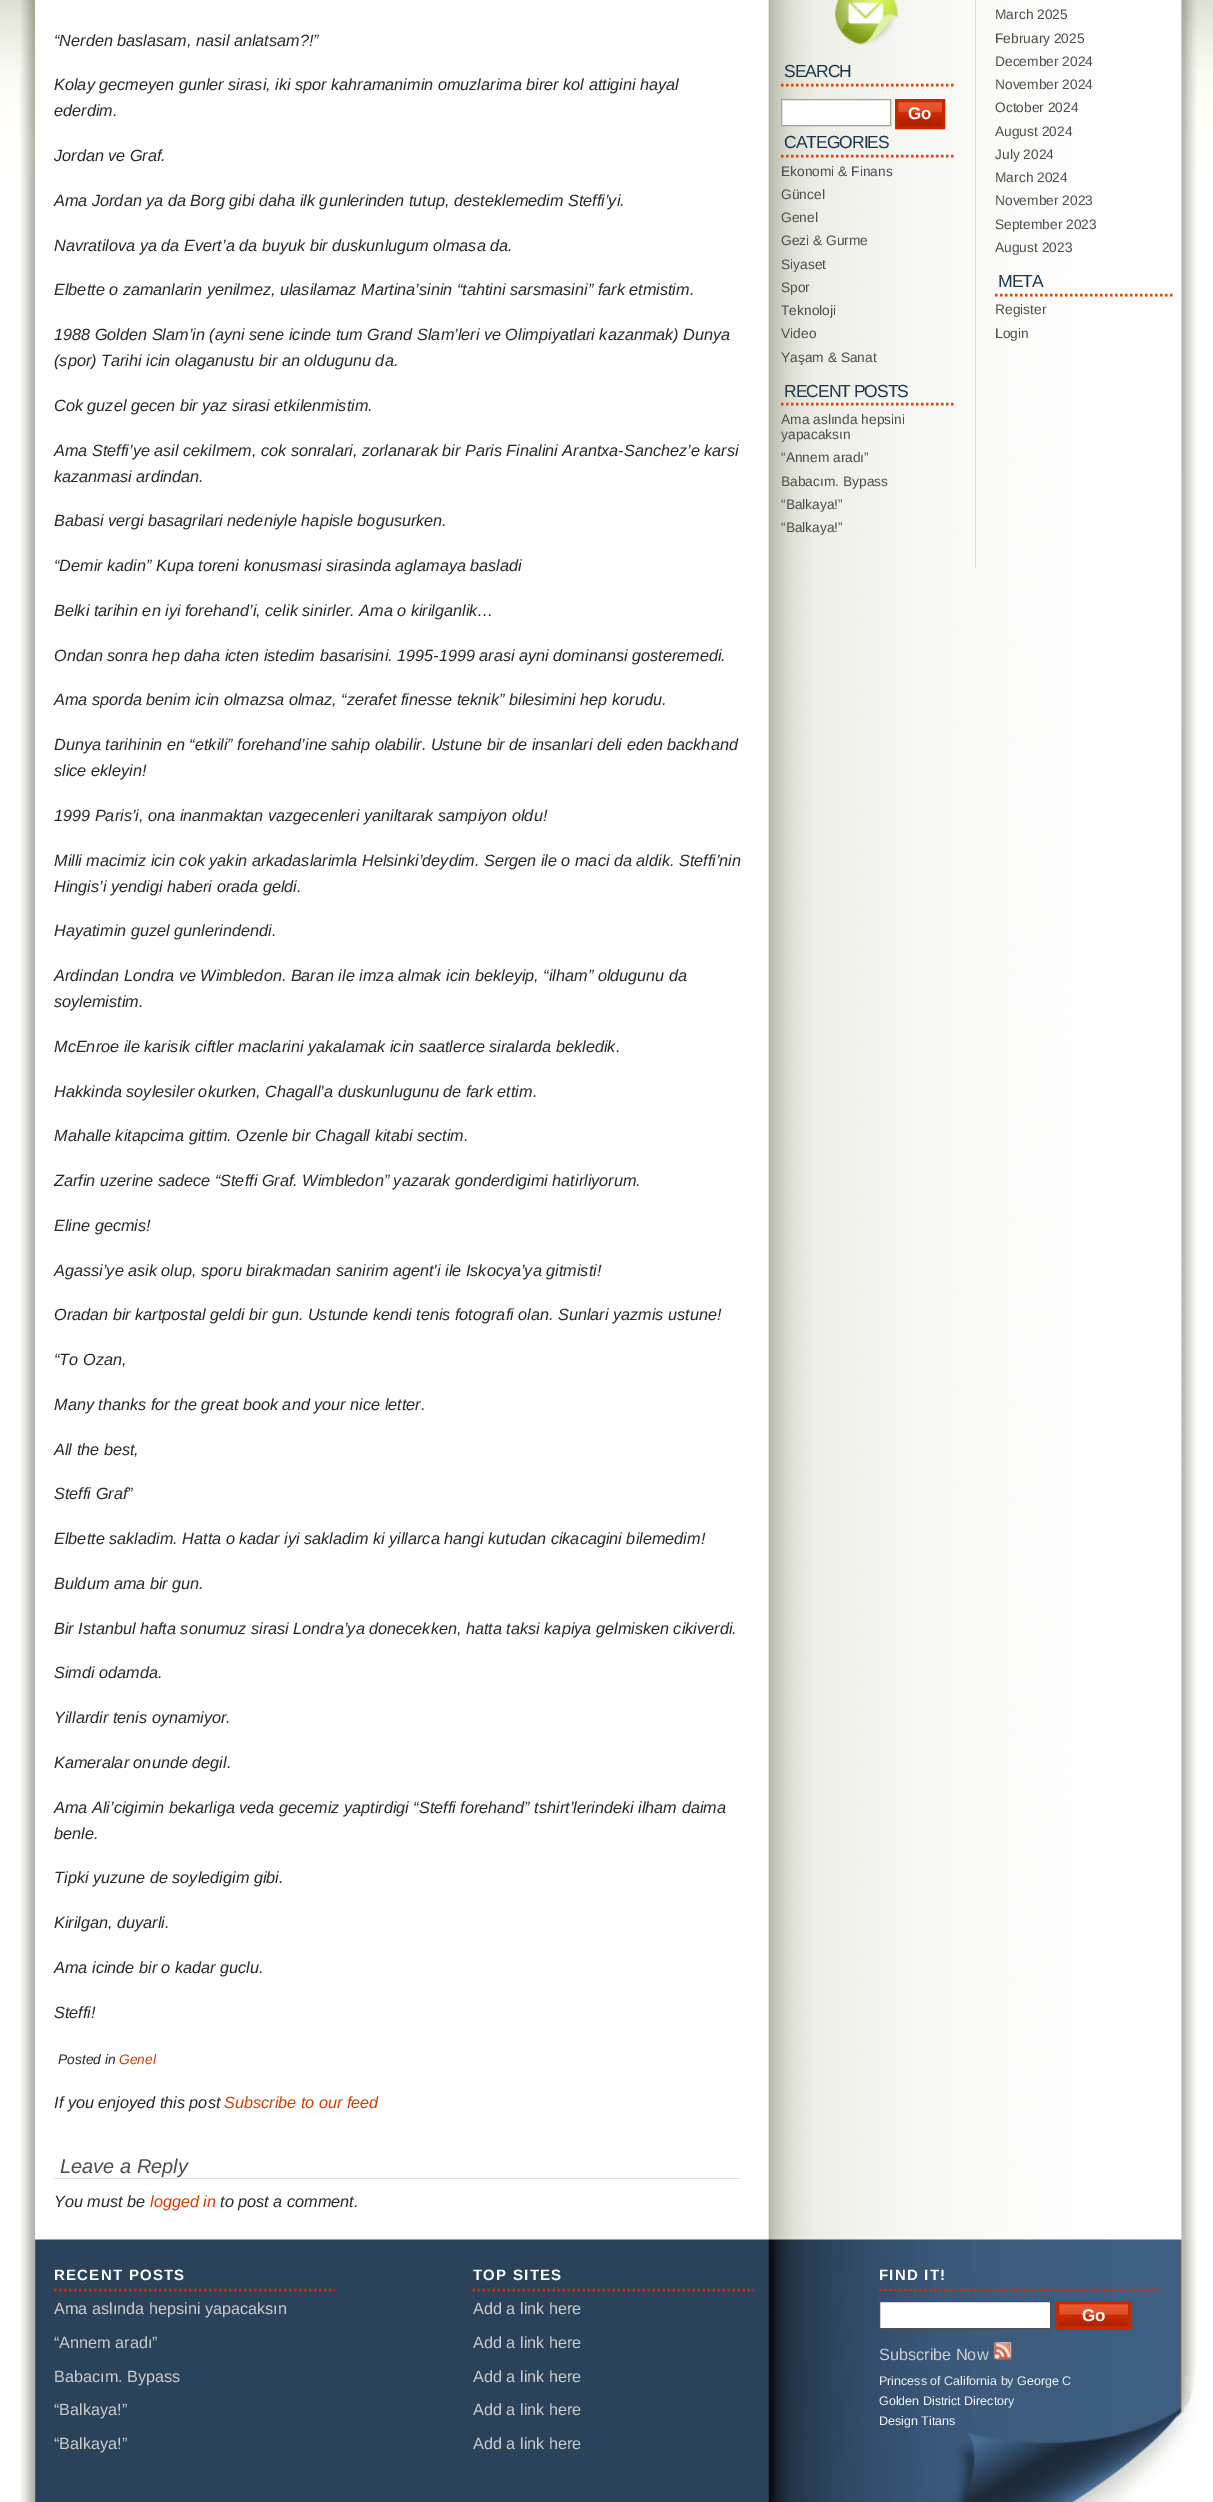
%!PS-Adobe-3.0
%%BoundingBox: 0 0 1213 2502
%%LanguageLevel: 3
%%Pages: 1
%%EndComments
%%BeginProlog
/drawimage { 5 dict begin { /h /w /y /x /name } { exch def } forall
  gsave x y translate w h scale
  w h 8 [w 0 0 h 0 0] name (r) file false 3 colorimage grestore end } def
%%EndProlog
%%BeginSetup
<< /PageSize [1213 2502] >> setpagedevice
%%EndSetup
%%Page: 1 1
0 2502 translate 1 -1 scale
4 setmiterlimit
1 setgray
0 0 1213 2502 rectfill
(images/1.raw) 0 0 1213 172 drawimage
(images/2.raw) 20 0 1177 2502 drawimage
0.89 0.89 0.871 setrgbcolor
54 2178 687 1 rectfill
0.871 0.871 0.847 setrgbcolor
975 0 1 568 rectfill
(images/3.raw) 834 0 64 45 drawimage
0.898 0.263 0 setrgbcolor
2.5 setlinewidth
[2.5 2.5] 0 setdash
newpath 781 85 moveto 956 85 lineto stroke
1 setgray
newpath 781.5 99.5 moveto 890.5 99.5 lineto 890.5 125.5 lineto 781.5 125.5 lineto closepath gsave fill grestore
0.635 0.635 0.584 setrgbcolor
1 setlinewidth
[] 0 setdash
stroke
(images/4.raw) 898 102 44 24 drawimage
0.776 0.161 0 setrgbcolor
3 setlinewidth
896.5 100.5 47 27 rectstroke
0.898 0.263 0 setrgbcolor
2.5 setlinewidth
[2.5 2.5] 0 setdash
newpath 781 156 moveto 956 156 lineto stroke
newpath 781 404 moveto 956 404 lineto stroke
newpath 995 295 moveto 1172.5 295 lineto stroke
(images/5.raw) 34 2239 1163 263 drawimage
0.827 0.173 0 setrgbcolor
newpath 54 2290 moveto 335 2290 lineto stroke
newpath 472.5 2290 moveto 754 2290 lineto stroke
newpath 879 2290 moveto 1160 2290 lineto stroke
1 setgray
newpath 879.5 2301.5 moveto 1050.5 2301.5 lineto 1050.5 2328.5 lineto 879.5 2328.5 lineto closepath gsave fill grestore
0.314 setgray
1 setlinewidth
[] 0 setdash
stroke
(images/6.raw) 1059 2303 73 26 drawimage
0.776 0.161 0 setrgbcolor
3 setlinewidth
1057.5 2302.5 72 25 rectstroke
(images/7.raw) 993 2341 20 19 drawimage
/LiberationSans-Italic [16.25 0 0 -16.25 0 0] selectfont
0.161 setgray
54 46 moveto (“Nerden baslasam, nasil anlatsam?!”) show
54 90 moveto (Kolay gecmeyen gunler sirasi, iki spor kahramanimin omuzlarima birer kol attigini hayal) show
54 116 moveto (ederdim.) show
54 161 moveto (Jordan ve Graf.) show
54 206 moveto (Ama Jordan ya da Borg gibi daha ilk gunlerinden tutup, desteklemedim Steffi’yi.) show
54 251 moveto (Navratilova ya da Evert’a da buyuk bir duskunlugum olmasa da.) show
54 295 moveto (Elbette o zamanlarin yenilmez, ulasilamaz Martina’sinin “tahtini sarsmasini” fark etmistim.) show
54 340 moveto (1988 Golden Slam’in \(ayni sene icinde tum Grand Slam’leri ve Olimpiyatlari kazanmak\) Dunya) show
54 366 moveto (\(spor\) Tarihi icin olaganustu bir an oldugunu da.) show
54 411 moveto (Cok guzel gecen bir yaz sirasi etkilenmistim.) show
54 456 moveto (Ama Steffi’ye asil cekilmem, cok sonralari, zorlanarak bir Paris Finalini Arantxa-Sanchez’e karsi) show
54 482 moveto (kazanmasi ardindan.) show
54 526 moveto (Babasi vergi basagrilari nedeniyle hapisle bogusurken.) show
54 571 moveto (“Demir kadin” Kupa toreni konusmasi sirasinda aglamaya basladi) show
54 616 moveto (Belki tarihin en iyi forehand’i, celik sinirler. Ama o kirilganlik…) show
54 661 moveto (Ondan sonra hep daha icten istedim basarisini. 1995-1999 arasi ayni dominansi gosteremedi.) show
54 705 moveto (Ama sporda benim icin olmazsa olmaz, “zerafet finesse teknik” bilesimini hep korudu.) show
54 750 moveto (Dunya tarihinin en “etkili” forehand’ine sahip olabilir. Ustune bir de insanlari deli eden backhand) show
54 776 moveto (slice ekleyin!) show
54 821 moveto (1999 Paris’i, ona inanmaktan vazgecenleri yaniltarak sampiyon oldu!) show
54 866 moveto (Milli macimiz icin cok yakin arkadaslarimla Helsinki’deydim. Sergen ile o maci da aldik. Steffi’nin) show
54 892 moveto (Hingis’i yendigi haberi orada geldi.) show
54 936 moveto (Hayatimin guzel gunlerindendi.) show
54 981 moveto (Ardindan Londra ve Wimbledon. Baran ile imza almak icin bekleyip, “ilham” oldugunu da) show
54 1007 moveto (soylemistim.) show
54 1052 moveto (McEnroe ile karisik ciftler maclarini yakalamak icin saatlerce siralarda bekledik.) show
54 1097 moveto (Hakkinda soylesiler okurken, Chagall’a duskunlugunu de fark ettim.) show
54 1141 moveto (Mahalle kitapcima gittim. Ozenle bir Chagall kitabi sectim.) show
54 1186 moveto (Zarfin uzerine sadece “Steffi Graf. Wimbledon” yazarak gonderdigimi hatirliyorum.) show
54 1231 moveto (Eline gecmis!) show
54 1276 moveto (Agassi’ye asik olup, sporu birakmadan sanirim agent’i ile Iskocya’ya gitmisti!) show
54 1320 moveto (Oradan bir kartpostal geldi bir gun. Ustunde kendi tenis fotografi olan. Sunlari yazmis ustune!) show
54 1365 moveto (“To Ozan,) show
54 1410 moveto (Many thanks for the great book and your nice letter.) show
54 1455 moveto (All the best,) show
54 1499 moveto (Steffi Graf”) show
54 1544 moveto (Elbette sakladim. Hatta o kadar iyi sakladim ki yillarca hangi kutudan cikacagini bilemedim!) show
54 1589 moveto (Buldum ama bir gun.) show
54 1634 moveto (Bir Istanbul hafta sonumuz sirasi Londra’ya donecekken, hatta taksi kapiya gelmisken cikiverdi.) show
54 1678 moveto (Simdi odamda.) show
54 1723 moveto (Yillardir tenis oynamiyor.) show
54 1768 moveto (Kameralar onunde degil.) show
54 1813 moveto (Ama Ali’cigimin bekarliga veda gecemiz yaptirdigi “Steffi forehand” tshirt’lerindeki ilham daima) show
54 1839 moveto (benle.) show
54 1883 moveto (Tipki yuzune de soyledigim gibi.) show
54 1928 moveto (Kirilgan, duyarli.) show
54 1973 moveto (Ama icinde bir o kadar guclu.) show
54 2018 moveto (Steffi!) show
/LiberationSans-Italic [13.75 0 0 -13.75 0 0] selectfont
58 2064 moveto (Posted in) show
0.847 0.231 0 setrgbcolor
119 2064 moveto (Genel) show
/LiberationSans-Italic [16.25 0 0 -16.25 0 0] selectfont
0.161 setgray
54 2108 moveto (If you enjoyed this post) show
0.847 0.231 0 setrgbcolor
224 2108 moveto (Subscribe to our feed) show
/LiberationSans-Italic [20 0 0 -20 0 0] selectfont
0.302 0.302 0.294 setrgbcolor
60 2173 moveto (Leave a Reply) show
/LiberationSans-Italic [16.25 0 0 -16.25 0 0] selectfont
0.161 setgray
54 2207 moveto (You must be) show
0.847 0.231 0 setrgbcolor
150 2207 moveto (logged in) show
0.161 setgray
220 2207 moveto (to post a comment.) show
/LiberationSans-Regular [17.5 0 0 -17.5 0 0] selectfont
0.11 0.212 0.302 setrgbcolor
784 77 moveto -1 0 (SEARCH) ashow
/LiberationSans-Bold [17 0 0 -17 0 0] selectfont
1 setgray
908 119 moveto (Go) show
/LiberationSans-Regular [17.5 0 0 -17.5 0 0] selectfont
0.11 0.212 0.302 setrgbcolor
784 148 moveto -1 0 (CATEGORIES) ashow
/LiberationSans-Regular [13.75 0 0 -13.75 0 0] selectfont
0.302 0.302 0.294 setrgbcolor
781 176 moveto (Ekonomi & Finans) show
781 199 moveto (Güncel) show
781 222 moveto (Genel) show
781 245 moveto (Gezi & Gurme) show
781 269 moveto (Siyaset) show
781 292 moveto (Spor) show
781 315 moveto (Teknoloji) show
781 338 moveto (Video) show
781 362 moveto (Yaşam & Sanat) show
/LiberationSans-Regular [17.5 0 0 -17.5 0 0] selectfont
0.11 0.212 0.302 setrgbcolor
784 397 moveto -1 0 (RECENT POSTS) ashow
/LiberationSans-Regular [13.75 0 0 -13.75 0 0] selectfont
0.302 0.302 0.294 setrgbcolor
781 424 moveto (Ama aslında hepsini) show
781 439 moveto (yapacaksın) show
781 462 moveto (“Annem aradı”) show
781 486 moveto (Babacım. Bypass) show
781 509 moveto (“Balkaya!”) show
781 532 moveto (“Balkaya!”) show
995 19 moveto (March 2025) show
995 43 moveto (February 2025) show
995 66 moveto (December 2024) show
995 89 moveto (November 2024) show
995 112 moveto (October 2024) show
995 136 moveto (August 2024) show
995 159 moveto (July 2024) show
995 182 moveto (March 2024) show
995 205 moveto (November 2023) show
995 229 moveto (September 2023) show
995 252 moveto (August 2023) show
/LiberationSans-Regular [17.5 0 0 -17.5 0 0] selectfont
0.11 0.212 0.302 setrgbcolor
998 287 moveto -1 0 (META) ashow
/LiberationSans-Regular [13.75 0 0 -13.75 0 0] selectfont
0.302 0.302 0.294 setrgbcolor
995 314 moveto (Register) show
995 338 moveto (Login) show
/LiberationSans-Bold [15 0 0 -15 0 0] selectfont
1 setgray
54 2280 moveto 1.25 0 (RECENT POSTS) ashow
/LiberationSans-Regular [16.25 0 0 -16.25 0 0] selectfont
0.8 setgray
54 2314 moveto (Ama aslında hepsini yapacaksın) show
54 2348 moveto (“Annem aradı”) show
54 2382 moveto (Babacım. Bypass) show
54 2415 moveto (“Balkaya!”) show
54 2449 moveto (“Balkaya!”) show
/LiberationSans-Bold [15 0 0 -15 0 0] selectfont
1 setgray
473 2280 moveto 1.25 0 (TOP SITES) ashow
/LiberationSans-Regular [16.25 0 0 -16.25 0 0] selectfont
0.8 setgray
473 2314 moveto (Add a link here) show
473 2348 moveto (Add a link here) show
473 2382 moveto (Add a link here) show
473 2415 moveto (Add a link here) show
473 2449 moveto (Add a link here) show
/LiberationSans-Bold [15 0 0 -15 0 0] selectfont
1 setgray
879 2280 moveto 1.25 0 (FIND IT!) ashow
/LiberationSans-Bold [17 0 0 -17 0 0] selectfont
1082 2321 moveto (Go) show
/LiberationSans-Regular [16.25 0 0 -16.25 0 0] selectfont
0.8 setgray
879 2360 moveto (Subscribe Now) show
/LiberationSans-Regular [12.5 0 0 -12.5 0 0] selectfont
0.929 setgray
879 2385 moveto (Princess of California by) show
0.941 0.961 0.969 setrgbcolor
1017 2385 moveto (George C) show
879 2405 moveto (Golden District Directory) show
879 2425 moveto (Design Titans) show
showpage
%%EOF
